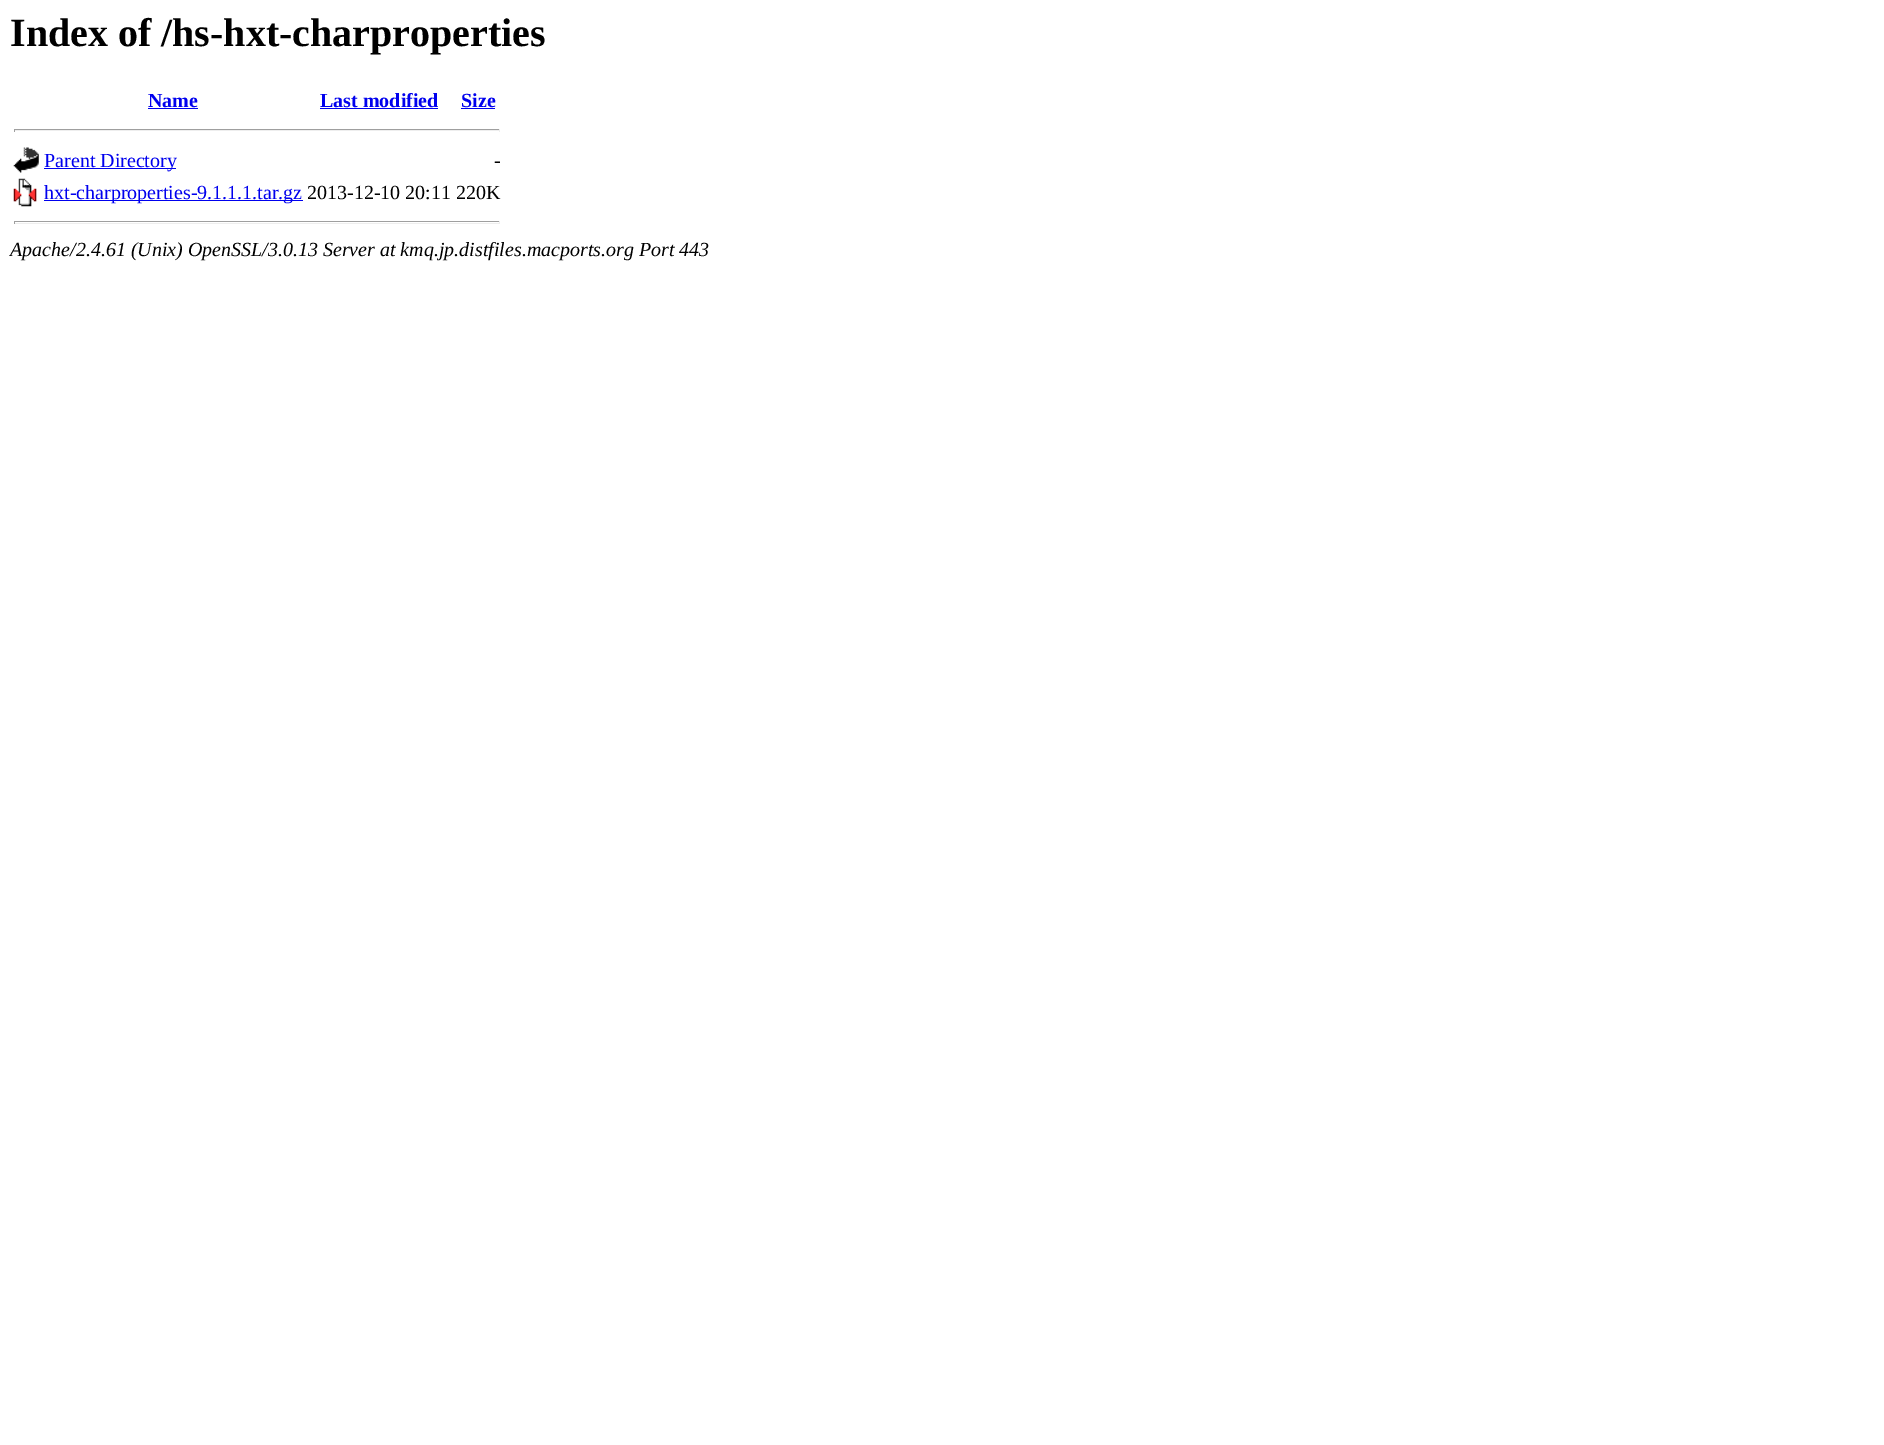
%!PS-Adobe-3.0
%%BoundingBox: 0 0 1884 1445
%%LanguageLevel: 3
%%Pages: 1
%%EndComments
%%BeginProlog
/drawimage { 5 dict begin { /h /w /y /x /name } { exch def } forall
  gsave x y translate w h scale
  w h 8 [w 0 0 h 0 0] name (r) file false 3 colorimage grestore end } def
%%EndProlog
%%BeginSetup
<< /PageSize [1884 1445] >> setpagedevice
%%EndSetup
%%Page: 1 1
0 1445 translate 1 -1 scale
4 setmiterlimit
1 setgray
0 0 1884 1445 rectfill
0 0 0.933 setrgbcolor
148 108 50 1 rectfill
320 108 118 1 rectfill
461 108 34 1 rectfill
0.624 setgray
14 129 486 1 rectfill
0.933 setgray
499 129 1 3 rectfill
14 130 486 1 rectfill
0.624 setgray
14 129 1 3 rectfill
(images/1.raw) 13 147 26 26 drawimage
0 0 0.933 setrgbcolor
44 168 132 1 rectfill
(images/2.raw) 13 178 24 29 drawimage
44 200 259 1 rectfill
0.624 setgray
14 221 486 1 rectfill
0.933 setgray
499 221 1 3 rectfill
14 223 486 1 rectfill
0.624 setgray
14 221 1 3 rectfill
/LiberationSerif-Bold [40 0 0 -40 0 0] selectfont
0 setgray
10 46 moveto (Index of /hs-hxt-charproperties) show
/LiberationSerif-Bold [20 0 0 -20 0 0] selectfont
0 0 0.933 setrgbcolor
148 107 moveto (Name) show
320 107 moveto (Last modified) show
461 107 moveto (Size) show
/LiberationSerif-Regular [20 0 0 -20 0 0] selectfont
44 167 moveto (Parent Directory) show
0 setgray
494 167 moveto (-) show
0 0 0.933 setrgbcolor
44 199 moveto (hxt-charproperties-9.1.1.1.tar.gz) show
0 setgray
307 199 moveto (2013-12-10 20:11 220K) show
/LiberationSerif-Italic [20 0 0 -20 0 0] selectfont
10 256 moveto (Apache/2.4.61 \(Unix\) OpenSSL/3.0.13 Server at kmq.jp.distfiles.macports.org Port 443) show
showpage
%%EOF
